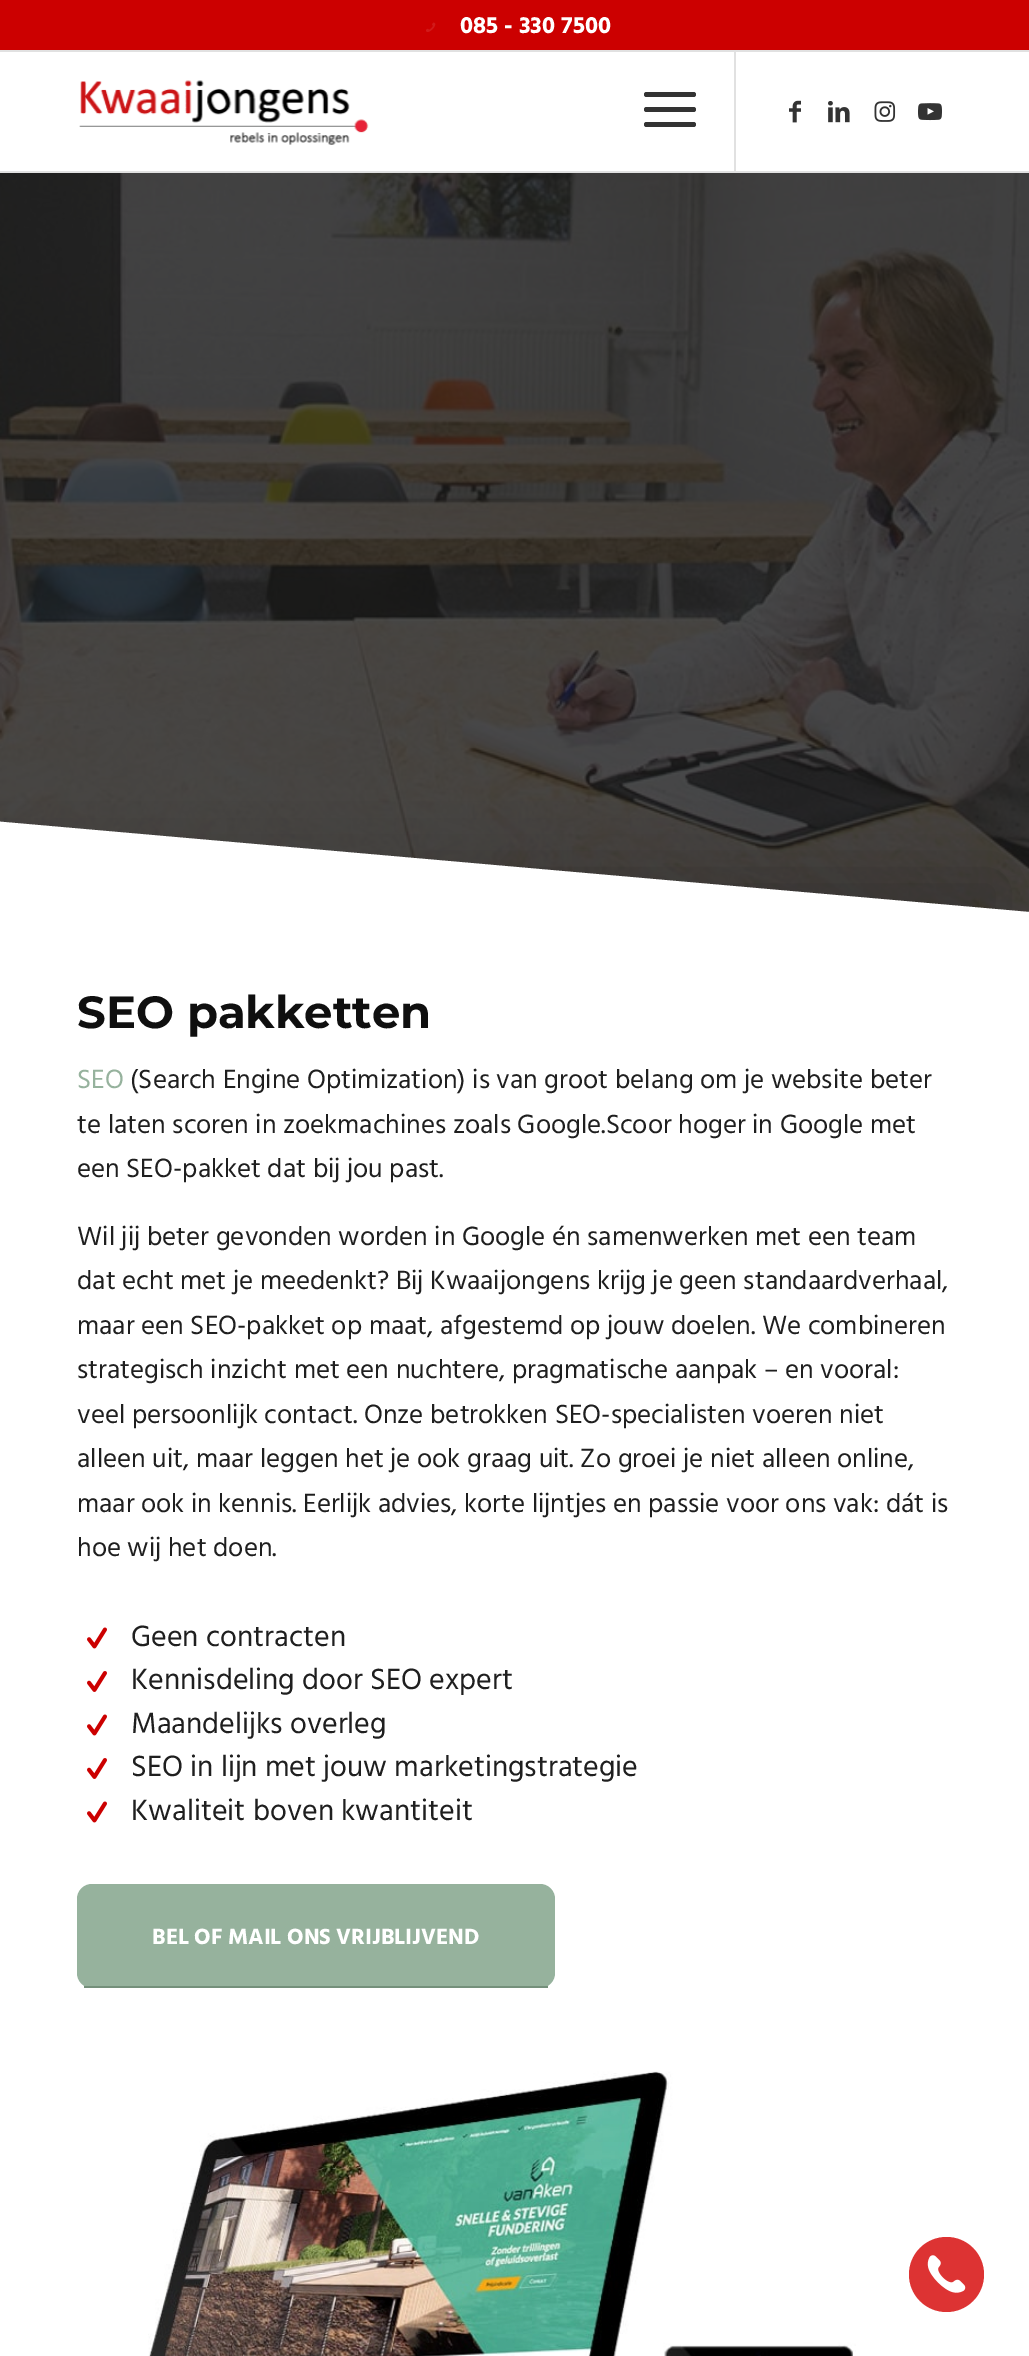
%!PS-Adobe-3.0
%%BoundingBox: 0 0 1029 2356
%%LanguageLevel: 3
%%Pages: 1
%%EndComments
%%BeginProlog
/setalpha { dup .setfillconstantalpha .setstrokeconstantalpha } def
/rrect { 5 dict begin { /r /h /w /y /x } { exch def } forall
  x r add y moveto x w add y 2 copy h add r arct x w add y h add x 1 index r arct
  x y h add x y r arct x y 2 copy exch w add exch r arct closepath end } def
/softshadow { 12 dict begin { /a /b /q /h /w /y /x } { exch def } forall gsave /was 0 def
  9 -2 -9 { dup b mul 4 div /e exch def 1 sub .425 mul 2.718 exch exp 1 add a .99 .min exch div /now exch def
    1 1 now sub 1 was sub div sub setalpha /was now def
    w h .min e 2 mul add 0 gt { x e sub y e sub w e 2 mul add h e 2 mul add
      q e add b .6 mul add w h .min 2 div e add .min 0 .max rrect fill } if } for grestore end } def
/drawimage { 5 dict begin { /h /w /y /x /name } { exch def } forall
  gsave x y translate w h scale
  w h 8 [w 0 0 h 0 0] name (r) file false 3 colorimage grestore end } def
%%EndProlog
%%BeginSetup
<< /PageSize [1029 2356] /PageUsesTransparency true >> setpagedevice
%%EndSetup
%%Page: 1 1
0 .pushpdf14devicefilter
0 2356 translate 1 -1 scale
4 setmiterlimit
1 setgray
0 0 1029 2356 rectfill
0.8 0 0 setrgbcolor
0 0 1029 50 rectfill
0.882 setgray
734 51 2 120 rectfill
0 50 1029 2 rectfill
(images/1.raw) 426 22 10 10 drawimage
0 171 1029 2 rectfill
(images/2.raw) 79 80 290 65 drawimage
0.2 setgray
644 107 52 5 2.5 rrect fill
644 92 52 5 2.5 rrect fill
644 122 52 5 2.5 rrect fill
(images/3.raw) 789 100 12 23 drawimage
(images/4.raw) 828 101 22 22 drawimage
(images/5.raw) 874 101 22 21 drawimage
(images/6.raw) 918 103 24 18 drawimage
(images/7.raw) 0 173 1029 739 drawimage
gsave
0 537 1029 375 rectclip
0 setgray
-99 875 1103 351 0 33 0.2 softshadow
grestore
gsave
0 537 1029 375 rectclip
1 setgray
newpath -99 813 moveto 1029 912 lineto 996 1286 lineto -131 1187 lineto closepath fill
grestore
(images/8.raw) 87 1627 20 22 drawimage
(images/9.raw) 87 1671 20 21 drawimage
(images/8.raw) 87 1714 20 22 drawimage
(images/9.raw) 87 1758 20 21 drawimage
(images/8.raw) 87 1801 20 22 drawimage
0.588 0.698 0.616 setrgbcolor
77 1884 478 104 15 rrect fill
0.455 0.565 0.482 setrgbcolor
84 1986 464 2 rectfill
(images/10.raw) 148 2071 708 285 drawimage
0.867 0.2 0.2 setrgbcolor
newpath 946.5 2274.5 37.5 0 360 arc closepath fill
(images/11.raw) 927 2255 39 38 drawimage
/Hind-Bold [24 0 0 -24 0 0] selectfont
1 setgray
460 33 moveto (085 - 330 7500) show
/Montserrat-Bold [45 0 0 -45 0 0] selectfont
0.059 setgray
77 1028 moveto (SEO pakketten) show
/Hind-Regular [27 0 0 -27 0 0] selectfont
0.588 0.698 0.616 setrgbcolor
77 1088 moveto (SEO) show
0.122 setgray
130 1088 moveto (\(Search Engine Optimization\) is van groot belang om je website beter) show
77 1133 moveto (te laten scoren in zoekmachines zoals Google.Scoor hoger in Google met) show
77 1177 moveto (een SEO-pakket dat bij jou past.) show
77 1245 moveto (Wil jij beter gevonden worden in Google én samenwerken met een team) show
77 1289 moveto (dat echt met je meedenkt? Bij Kwaaijongens krijg je geen standaardverhaal,) show
77 1334 moveto (maar een SEO-pakket op maat, afgestemd op jouw doelen. We combineren) show
77 1378 moveto (strategisch inzicht met een nuchtere, pragmatische aanpak – en vooral:) show
77 1423 moveto (veel persoonlijk contact. Onze betrokken SEO-specialisten voeren niet) show
77 1467 moveto (alleen uit, maar leggen het je ook graag uit. Zo groei je niet alleen online,) show
77 1512 moveto (maar ook in kennis. Eerlijk advies, korte lijntjes en passie voor ons vak: dát is) show
77 1556 moveto (hoe wij het doen.) show
/Hind-Regular [30 0 0 -30 0 0] selectfont
131 1646 moveto (Geen contracten) show
131 1689 moveto (Kennisdeling door SEO expert) show
131 1733 moveto (Maandelijks overleg) show
131 1776 moveto (SEO in lijn met jouw marketingstrategie) show
131 1820 moveto (Kwaliteit boven kwantiteit) show
/Hind-Bold [22.5 0 0 -22.5 0 0] selectfont
1 setgray
152 1944 moveto (BEL OF MAIL ONS VRIJBLIJVEND) show
.poppdf14devicefilter showpage
%%EOF
